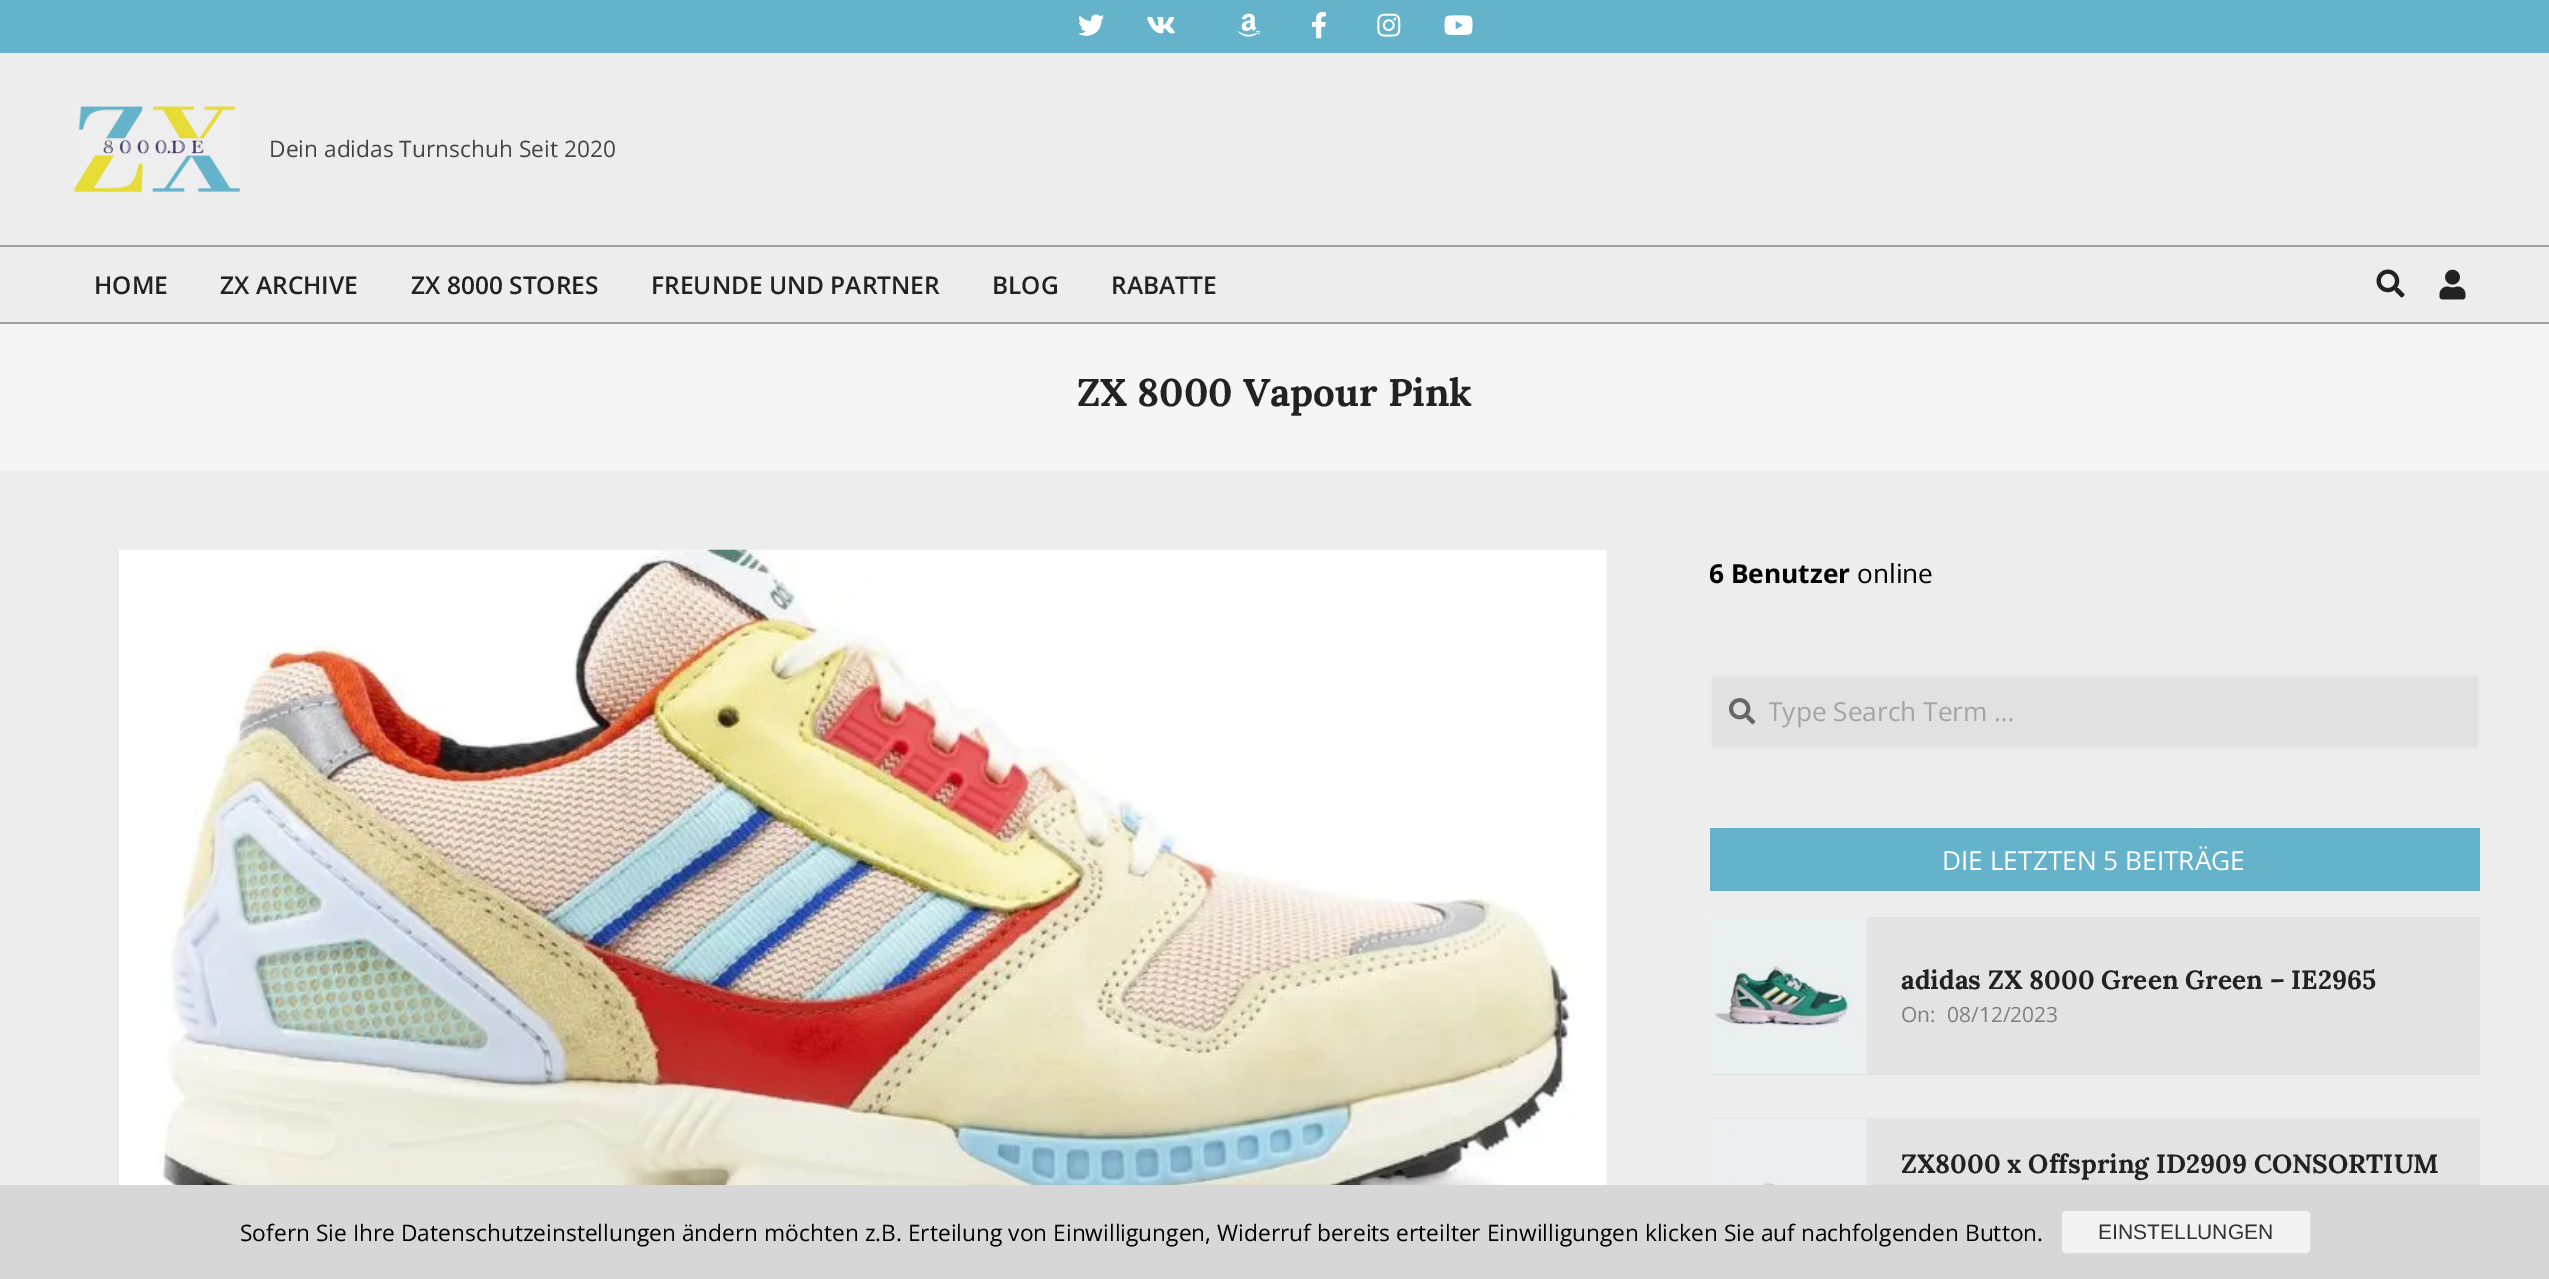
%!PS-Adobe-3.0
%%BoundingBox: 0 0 2549 1279
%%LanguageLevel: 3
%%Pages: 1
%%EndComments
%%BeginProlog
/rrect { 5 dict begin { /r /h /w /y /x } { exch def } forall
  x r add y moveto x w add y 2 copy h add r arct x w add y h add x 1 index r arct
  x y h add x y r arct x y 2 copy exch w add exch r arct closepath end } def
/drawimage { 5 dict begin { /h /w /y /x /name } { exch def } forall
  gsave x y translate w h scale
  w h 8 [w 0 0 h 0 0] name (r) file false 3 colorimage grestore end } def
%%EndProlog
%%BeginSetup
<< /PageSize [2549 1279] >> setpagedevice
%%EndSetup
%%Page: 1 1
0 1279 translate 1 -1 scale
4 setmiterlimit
0.929 setgray
0 0 2549 1279 rectfill
0.396 0.702 0.792 setrgbcolor
0 0 2549 53 rectfill
(images/1.raw) 1078 14 27 22 drawimage
(images/2.raw) 1147 16 28 18 drawimage
(images/3.raw) 1237 13 23 24 drawimage
(images/4.raw) 1311 12 15 27 drawimage
(images/5.raw) 1377 13 24 24 drawimage
(images/6.raw) 1444 15 29 20 drawimage
0.624 setgray
0 245 2549 2 rectfill
(images/7.raw) 74 106 166 87 drawimage
0 322 2549 2 rectfill
(images/8.raw) 2376 269 29 29 drawimage
(images/9.raw) 2439 269 27 31 drawimage
0.961 setgray
0 324 2549 147 rectfill
(images/10.raw) 119 549 1488 636 drawimage
0.882 setgray
newpath 1711 675 moveto 2479 675 lineto 2479 748 lineto 1711 748 lineto closepath gsave fill grestore
0.918 setgray
2 setlinewidth
stroke
(images/11.raw) 1729 698 27 27 drawimage
0.396 0.702 0.792 setrgbcolor
1710 828 770 63 rectfill
0.89 setgray
1867 917 613 158 rectfill
0.8 setgray
1710 1074 157 1 rectfill
(images/12.raw) 1710 917 157 158 drawimage
0.89 setgray
1710 1118 770 67 rectfill
(images/13.raw) 1710 1118 157 67 drawimage
0.843 setgray
0 1185 2549 94 rectfill
0.953 setgray
2063 1212 246 40 3 rrect gsave fill grestore
stroke
/OpenSans-Regular [22.75 0 0 -22.75 0 0] selectfont
0.267 setgray
269 157 moveto (Dein adidas Turnschuh Seit 2020) show
/OpenSans-SemiBold [24.5 0 0 -24.5 0 0] selectfont
0.133 setgray
94 294 moveto (HOME) show
220 294 moveto (ZX ARCHIVE) show
411 294 moveto (ZX 8000 STORES) show
651 294 moveto (FREUNDE UND PARTNER) show
992 294 moveto (BLOG) show
1111 294 moveto (RABATTE) show
/Lora-Bold [38.5 0 0 -38.5 0 0] selectfont
1077 406 moveto (ZX 8000 Vapour Pink) show
gsave
1710 550 770 45 rectclip
/OpenSans-Bold [26.25 0 0 -26.25 0 0] selectfont
0 setgray
1709 583 moveto (6 Benutzer) show
grestore
/OpenSans-Regular [26.25 0 0 -26.25 0 0] selectfont
0 setgray
1857 583 moveto (online) show
gsave
1769 693 678 35 rectclip
0.643 setgray
1768 721 moveto (Type Search Term …) show
grestore
1 setgray
1942 870 moveto (DIE LETZTEN 5 BEITRÄGE) show
/Lora-Bold [26.25 0 0 -26.25 0 0] selectfont
0.133 setgray
1901 989 moveto (adidas ZX 8000 Green Green – IE2965) show
/OpenSans-Regular [21 0 0 -21 0 0] selectfont
0.498 setgray
1901 1022 moveto (On:) show
1947 1022 moveto (08/12/2023) show
/Lora-Bold [26.25 0 0 -26.25 0 0] selectfont
0.133 setgray
1901 1173 moveto (ZX8000 x Offspring ID2909 CONSORTIUM) show
/OpenSans-Regular [22.75 0 0 -22.75 0 0] selectfont
0 setgray
240 1241 moveto (Sofern Sie Ihre Datenschutzeinstellungen ändern möchten z.B. Erteilung von Einwilligungen, Widerruf bereits erteilter Einwilligungen klicken Sie auf nachfolgenden Button.) show
/LiberationSans-Regular [21 0 0 -21 0 0] selectfont
0.2 setgray
2098 1239 moveto (EINSTELLUNGEN) show
showpage
%%EOF
